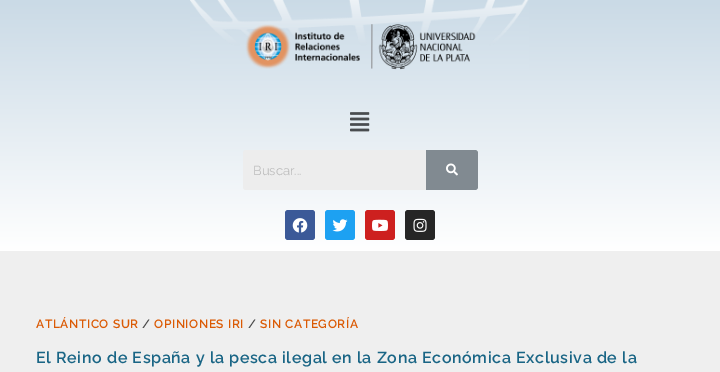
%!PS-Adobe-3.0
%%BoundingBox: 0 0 720 372
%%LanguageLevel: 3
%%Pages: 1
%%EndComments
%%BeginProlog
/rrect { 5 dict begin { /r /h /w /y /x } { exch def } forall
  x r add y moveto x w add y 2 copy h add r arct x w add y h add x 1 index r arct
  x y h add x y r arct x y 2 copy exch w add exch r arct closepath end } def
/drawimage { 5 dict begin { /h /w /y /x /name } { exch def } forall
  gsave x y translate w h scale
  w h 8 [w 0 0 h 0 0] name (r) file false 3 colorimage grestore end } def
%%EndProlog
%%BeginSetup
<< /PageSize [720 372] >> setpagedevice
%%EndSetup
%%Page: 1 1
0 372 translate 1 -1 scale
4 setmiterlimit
0.937 setgray
0 0 720 372 rectfill
gsave newpath 0 0 moveto 720 0 lineto 720 251 lineto 0 251 lineto closepath clip newpath
<< /ShadingType 2 /ColorSpace /DeviceRGB /Coords [360 0 360 251] /Extend [true true] /Function << /FunctionType 2 /Domain [0 1] /C0 [0.792 0.855 0.902] /C1 [1 1 1] /N 1 >> >> shfill grestore
(images/1.raw) 190 0 339 70 drawimage
(images/2.raw) 350 112 20 20 drawimage
0.929 setgray
newpath 246 150 moveto 426 150 lineto 426 190 lineto 246 190 lineto 244.5 190 243 188.5 243 187 curveto 243 153 lineto 243 151.5 244.5 150 246 150 curveto closepath fill
0.506 0.541 0.569 setrgbcolor
newpath 426 150 moveto 475 150 lineto 476.5 150 478 151.5 478 153 curveto 478 187 lineto 478 188.5 476.5 190 475 190 curveto 426 190 lineto closepath fill
(images/3.raw) 446 163 12 13 drawimage
0.231 0.349 0.596 setrgbcolor
285 210 30 30 3 rrect fill
(images/4.raw) 292 218 16 15 drawimage
0.114 0.631 0.949 setrgbcolor
325 210 30 30 3 rrect fill
(images/5.raw) 332 219 16 13 drawimage
0.804 0.125 0.122 setrgbcolor
365 210 30 30 3 rrect fill
(images/6.raw) 372 219 16 12 drawimage
0.149 setgray
405 210 30 30 3 rrect fill
(images/7.raw) 413 218 14 14 drawimage
/Raleway-Regular [13 0 0 -13 0 0] selectfont
0.741 setgray
253 175 moveto (Buscar...) show
/Raleway-SemiBold [12 0 0 -12 0 0] selectfont
0.859 0.353 0.016 setrgbcolor
36 328 moveto 0.6 0 (ATLÁNTICO SUR) ashow
0.29 setgray
142 328 moveto 0.6 0 (/) ashow
0.859 0.353 0.016 setrgbcolor
154 328 moveto 0.6 0 (OPINIONES IRI) ashow
0.29 setgray
248 328 moveto 0.6 0 (/) ashow
0.859 0.353 0.016 setrgbcolor
260 328 moveto 0.6 0 (SIN CATEGORÍA) ashow
/Raleway-SemiBold [16 0 0 -16 0 0] selectfont
0.098 0.396 0.522 setrgbcolor
36 363 moveto 0.6 0 (El Reino de España y la pesca ilegal en la Zona Económica Exclusiva de la) ashow
showpage
%%EOF
